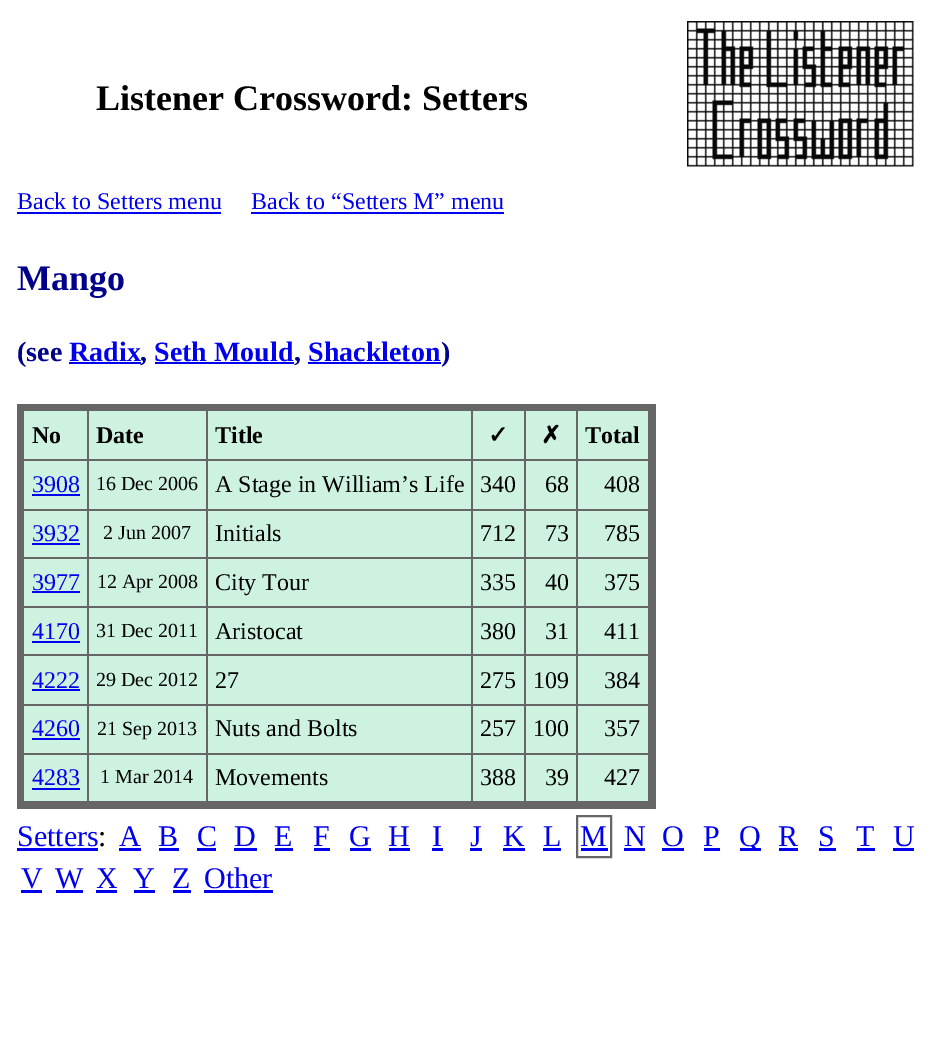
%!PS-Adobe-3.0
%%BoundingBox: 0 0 934 1053
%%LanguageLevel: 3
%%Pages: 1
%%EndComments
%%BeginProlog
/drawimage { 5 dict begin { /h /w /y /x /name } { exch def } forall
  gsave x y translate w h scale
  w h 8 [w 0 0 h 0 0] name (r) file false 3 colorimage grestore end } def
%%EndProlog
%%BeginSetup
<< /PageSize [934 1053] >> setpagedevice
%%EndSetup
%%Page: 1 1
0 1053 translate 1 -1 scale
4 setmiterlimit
1 setgray
0 0 934 1053 rectfill
(images/1.raw) 687 21 227 146 drawimage
0 0 0.933 setrgbcolor
17 212 204 2 rectfill
251 212 253 2 rectfill
69 362 72 2 rectfill
155 362 139 2 rectfill
308 362 133 2 rectfill
0.808 0.949 0.878 setrgbcolor
24 411 624 390 rectfill
0.4 setgray
576 459 77 2 rectfill
576 509 77 2 rectfill
576 557 77 2 rectfill
576 606 77 2 rectfill
576 654 77 2 rectfill
576 704 77 2 rectfill
576 753 77 2 rectfill
576 753 2 53 rectfill
524 753 54 2 rectfill
576 704 2 51 rectfill
524 704 54 2 rectfill
576 654 2 51 rectfill
524 654 54 2 rectfill
576 606 2 50 rectfill
524 606 54 2 rectfill
576 557 2 51 rectfill
524 557 54 2 rectfill
576 509 2 49 rectfill
524 509 54 2 rectfill
576 459 2 51 rectfill
524 459 54 2 rectfill
524 753 2 53 rectfill
471 753 54 2 rectfill
524 704 2 51 rectfill
471 704 54 2 rectfill
524 654 2 51 rectfill
471 654 54 2 rectfill
524 606 2 50 rectfill
471 606 54 2 rectfill
524 557 2 51 rectfill
471 557 54 2 rectfill
524 509 2 49 rectfill
471 509 54 2 rectfill
524 459 2 51 rectfill
471 459 54 2 rectfill
471 753 2 53 rectfill
206 753 267 2 rectfill
471 704 2 51 rectfill
206 704 267 2 rectfill
471 654 2 51 rectfill
206 654 267 2 rectfill
471 606 2 50 rectfill
206 606 267 2 rectfill
471 557 2 51 rectfill
206 557 267 2 rectfill
471 509 2 49 rectfill
206 509 267 2 rectfill
471 459 2 51 rectfill
206 459 267 2 rectfill
206 753 2 53 rectfill
87 753 120 2 rectfill
206 704 2 51 rectfill
87 704 120 2 rectfill
206 654 2 51 rectfill
87 654 120 2 rectfill
206 606 2 50 rectfill
87 606 120 2 rectfill
206 557 2 51 rectfill
87 557 120 2 rectfill
206 509 2 49 rectfill
87 509 120 2 rectfill
206 459 2 51 rectfill
87 459 120 2 rectfill
87 753 2 53 rectfill
20 753 69 2 rectfill
87 704 2 51 rectfill
20 704 69 2 rectfill
87 654 2 51 rectfill
20 654 69 2 rectfill
87 606 2 50 rectfill
20 606 69 2 rectfill
87 557 2 51 rectfill
20 557 69 2 rectfill
87 509 2 49 rectfill
20 509 69 2 rectfill
87 459 2 51 rectfill
20 459 69 2 rectfill
87 407 2 54 rectfill
206 407 2 54 rectfill
471 407 2 54 rectfill
524 407 2 54 rectfill
576 407 2 54 rectfill
17 404 639 7 rectfill
648 404 8 405 rectfill
17 801 639 8 rectfill
17 404 7 405 rectfill
0 0 0.933 setrgbcolor
32 494 48 2 rectfill
32 543 48 2 rectfill
32 591 48 2 rectfill
32 641 48 2 rectfill
32 689 48 2 rectfill
32 738 48 2 rectfill
32 788 48 2 rectfill
17 848 81 3 rectfill
119 848 22 3 rectfill
159 848 20 3 rectfill
197 848 19 3 rectfill
234 848 23 3 rectfill
275 848 18 3 rectfill
314 848 16 3 rectfill
350 848 21 3 rectfill
389 848 21 3 rectfill
432 848 11 3 rectfill
470 848 12 3 rectfill
503 848 22 3 rectfill
543 848 18 3 rectfill
0.4 setgray
2 setlinewidth
577 816 34 41 rectstroke
0 0 0.933 setrgbcolor
581 848 27 3 rectfill
624 848 21 3 rectfill
662 848 22 3 rectfill
704 848 16 3 rectfill
740 848 21 3 rectfill
779 848 19 3 rectfill
819 848 17 3 rectfill
857 848 18 3 rectfill
893 848 21 3 rectfill
21 890 21 3 rectfill
56 890 27 3 rectfill
96 890 21 3 rectfill
134 890 21 3 rectfill
173 890 18 3 rectfill
204 890 69 3 rectfill
/LiberationSerif-Bold [36 0 0 -36 0 0] selectfont
0 setgray
96 110 moveto (Listener Crossword: Setters) show
/LiberationSerif-Regular [24 0 0 -24 0 0] selectfont
0 0 0.933 setrgbcolor
17 209 moveto (Back to Setters menu) show
251 209 moveto (Back to “Setters M” menu) show
/LiberationSerif-Bold [36 0 0 -36 0 0] selectfont
0 0 0.533 setrgbcolor
17 290 moveto (Mango) show
/LiberationSerif-Bold [28 0 0 -28 0 0] selectfont
17 361 moveto (\(see) show
0 0 0.933 setrgbcolor
69 361 moveto (Radix) show
0 0 0.533 setrgbcolor
140 361 moveto (,) show
0 0 0.933 setrgbcolor
154 361 moveto (Seth Mould) show
0 0 0.533 setrgbcolor
294 361 moveto (,) show
0 0 0.933 setrgbcolor
308 361 moveto (Shackleton) show
0 0 0.533 setrgbcolor
441 361 moveto (\)) show
/LiberationSerif-Bold [24 0 0 -24 0 0] selectfont
0 setgray
32 443 moveto (No) show
96 443 moveto (Date) show
215 443 moveto (Title) show
/DejaVuSans-Bold [24 0 0 -24 0 0] selectfont
488 443 moveto (✓) show
541 443 moveto (✗) show
/LiberationSerif-Bold [24 0 0 -24 0 0] selectfont
585 443 moveto (Total) show
/LiberationSerif-Regular [24 0 0 -24 0 0] selectfont
0 0 0.933 setrgbcolor
32 492 moveto (3908) show
/LiberationSerif-Regular [20 0 0 -20 0 0] selectfont
0 setgray
96 490 moveto (16 Dec 2006) show
/LiberationSerif-Regular [24 0 0 -24 0 0] selectfont
215 492 moveto (A Stage in William’s Life) show
480 492 moveto (340) show
545 492 moveto (68) show
604 492 moveto (408) show
0 0 0.933 setrgbcolor
32 541 moveto (3932) show
/LiberationSerif-Regular [20 0 0 -20 0 0] selectfont
0 setgray
103 539 moveto (2 Jun 2007) show
/LiberationSerif-Regular [24 0 0 -24 0 0] selectfont
215 541 moveto (Initials) show
480 541 moveto (712) show
545 541 moveto (73) show
604 541 moveto (785) show
0 0 0.933 setrgbcolor
32 590 moveto (3977) show
/LiberationSerif-Regular [20 0 0 -20 0 0] selectfont
0 setgray
97 588 moveto (12 Apr 2008) show
/LiberationSerif-Regular [24 0 0 -24 0 0] selectfont
215 590 moveto (City Tour) show
480 590 moveto (335) show
545 590 moveto (40) show
604 590 moveto (375) show
0 0 0.933 setrgbcolor
32 639 moveto (4170) show
/LiberationSerif-Regular [20 0 0 -20 0 0] selectfont
0 setgray
96 637 moveto (31 Dec 2011) show
/LiberationSerif-Regular [24 0 0 -24 0 0] selectfont
215 639 moveto (Aristocat) show
480 639 moveto (380) show
545 639 moveto (31) show
604 639 moveto (411) show
0 0 0.933 setrgbcolor
32 688 moveto (4222) show
/LiberationSerif-Regular [20 0 0 -20 0 0] selectfont
0 setgray
96 686 moveto (29 Dec 2012) show
/LiberationSerif-Regular [24 0 0 -24 0 0] selectfont
215 688 moveto (27) show
480 688 moveto (275) show
533 688 moveto (109) show
604 688 moveto (384) show
0 0 0.933 setrgbcolor
32 736 moveto (4260) show
/LiberationSerif-Regular [20 0 0 -20 0 0] selectfont
0 setgray
97 735 moveto (21 Sep 2013) show
/LiberationSerif-Regular [24 0 0 -24 0 0] selectfont
215 736 moveto (Nuts and Bolts) show
480 736 moveto (257) show
533 736 moveto (100) show
604 736 moveto (357) show
0 0 0.933 setrgbcolor
32 785 moveto (4283) show
/LiberationSerif-Regular [20 0 0 -20 0 0] selectfont
0 setgray
100 783 moveto (1 Mar 2014) show
/LiberationSerif-Regular [24 0 0 -24 0 0] selectfont
215 785 moveto (Movements) show
480 785 moveto (388) show
545 785 moveto (39) show
604 785 moveto (427) show
/LiberationSerif-Regular [30 0 0 -30 0 0] selectfont
0 0 0.933 setrgbcolor
17 846 moveto (Setters) show
0 setgray
98 846 moveto (:) show
0 0 0.933 setrgbcolor
119 846 moveto (A) show
158 846 moveto (B) show
197 846 moveto (C) show
234 846 moveto (D) show
274 846 moveto (E) show
313 846 moveto (F) show
349 846 moveto (G) show
388 846 moveto (H) show
432 846 moveto (I) show
470 846 moveto (J) show
503 846 moveto (K) show
543 846 moveto (L) show
580 846 moveto (M) show
624 846 moveto (N) show
662 846 moveto (O) show
703 846 moveto (P) show
739 846 moveto (Q) show
778 846 moveto (R) show
818 846 moveto (S) show
856 846 moveto (T) show
893 846 moveto (U) show
21 888 moveto (V) show
55 888 moveto (W) show
96 888 moveto (X) show
133 888 moveto (Y) show
172 888 moveto (Z) show
204 888 moveto (Other) show
showpage
%%EOF
